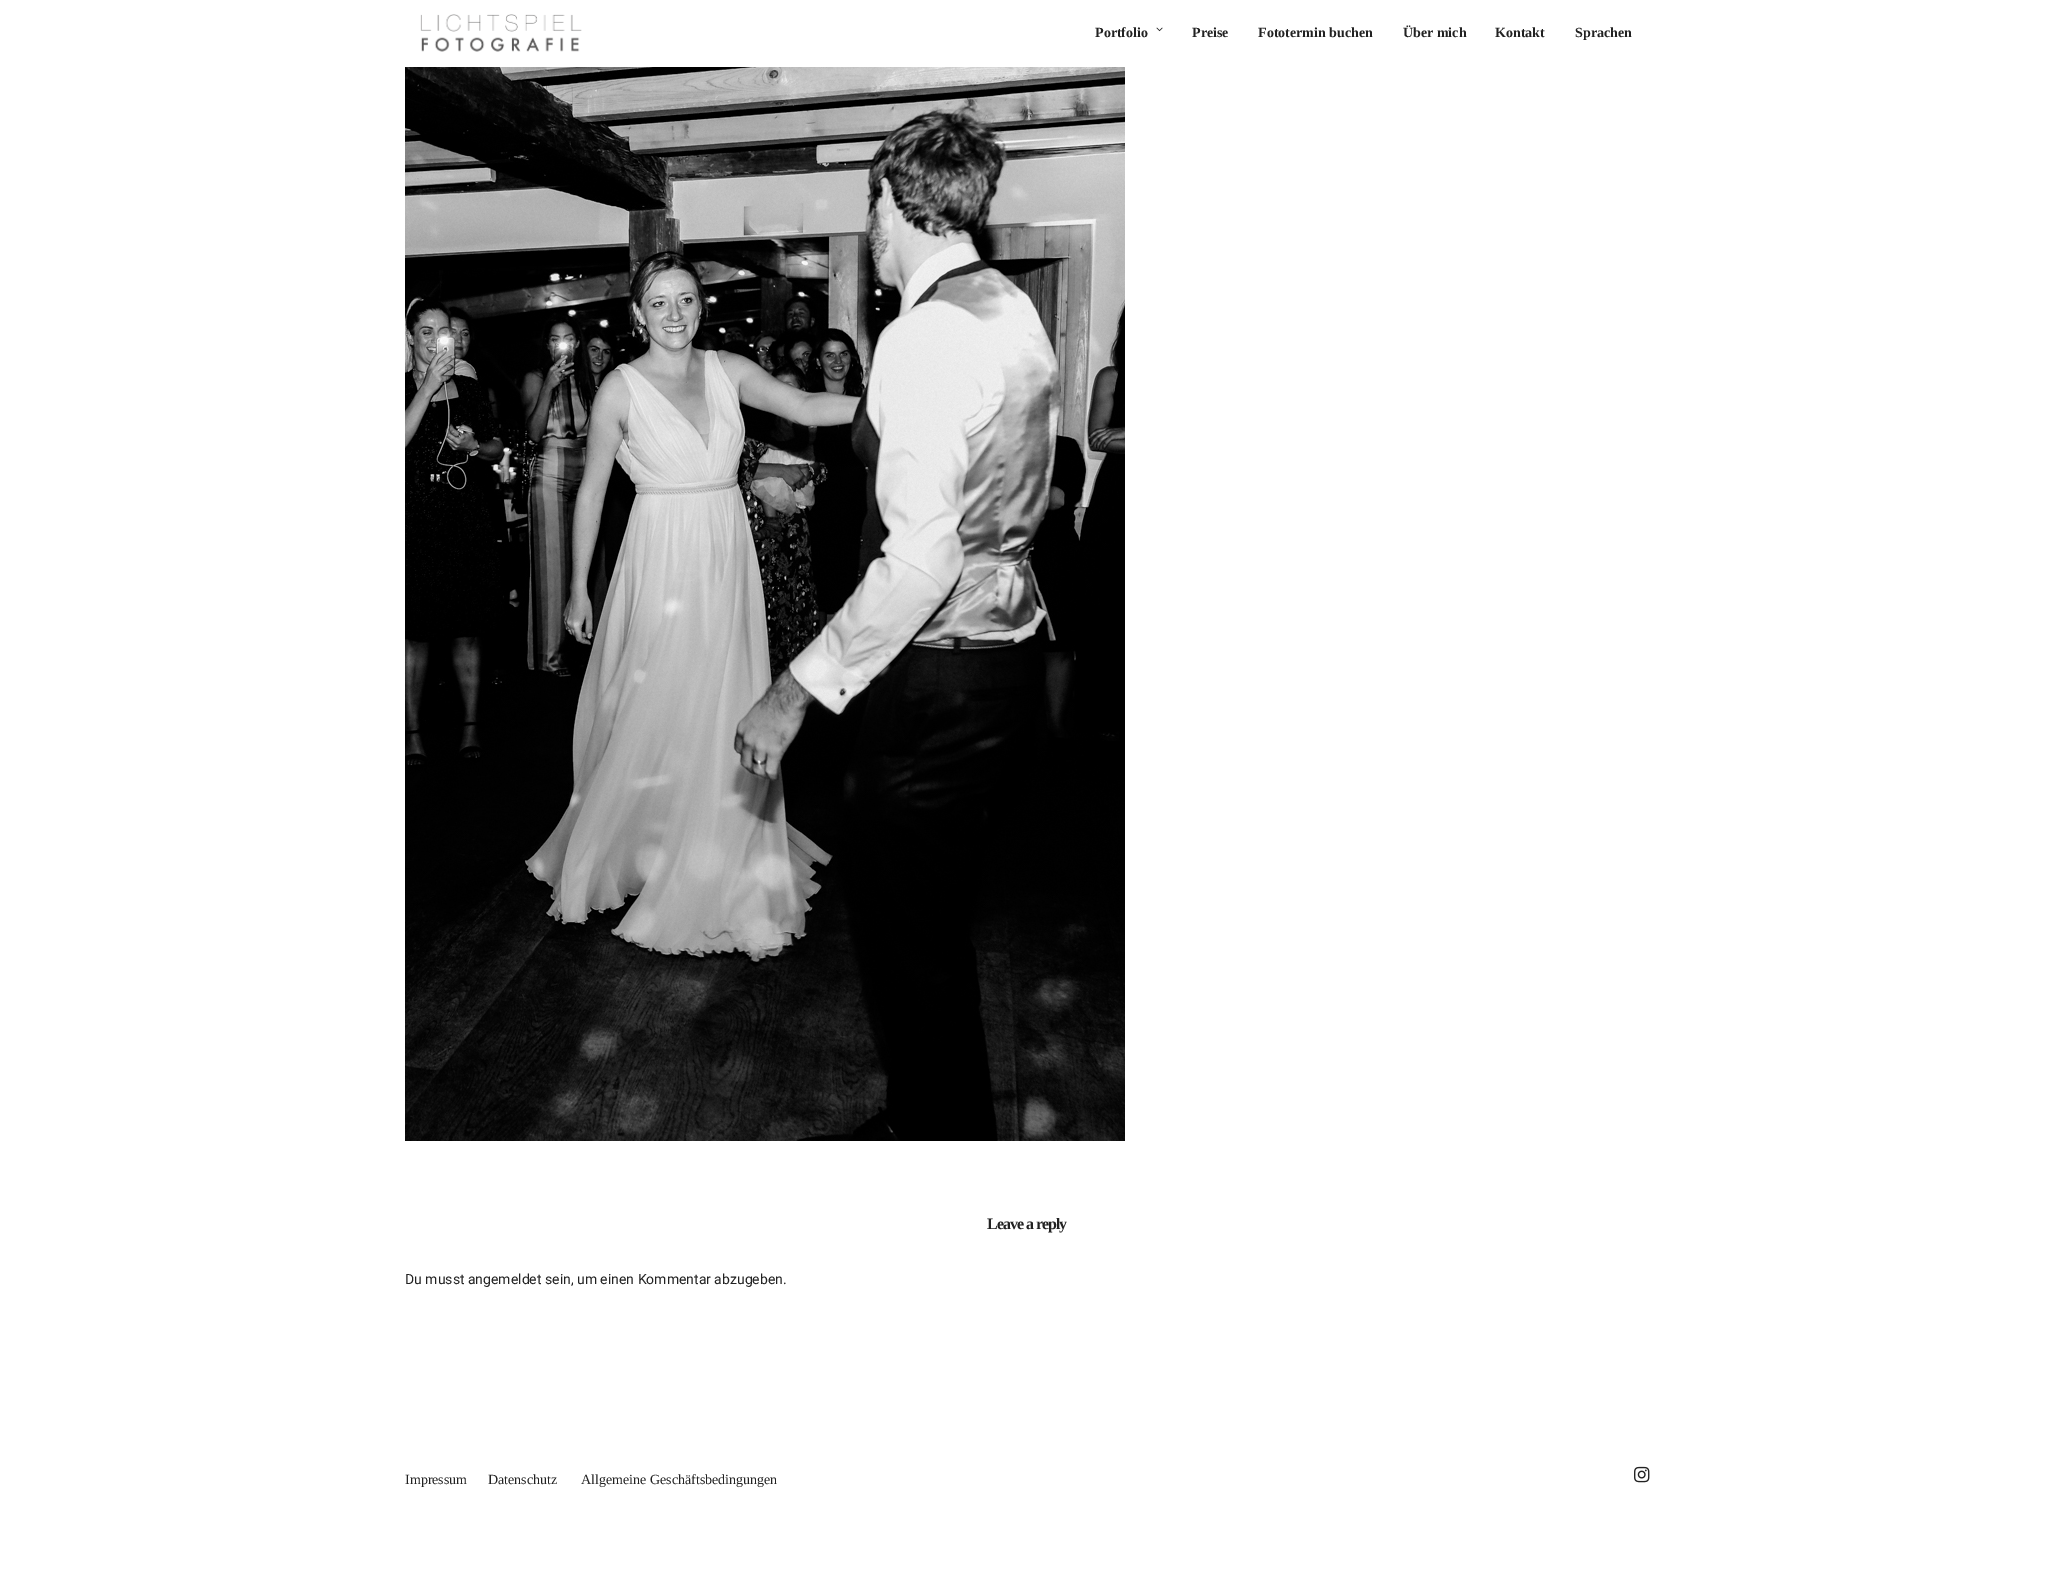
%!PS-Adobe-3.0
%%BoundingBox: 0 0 2054 1591
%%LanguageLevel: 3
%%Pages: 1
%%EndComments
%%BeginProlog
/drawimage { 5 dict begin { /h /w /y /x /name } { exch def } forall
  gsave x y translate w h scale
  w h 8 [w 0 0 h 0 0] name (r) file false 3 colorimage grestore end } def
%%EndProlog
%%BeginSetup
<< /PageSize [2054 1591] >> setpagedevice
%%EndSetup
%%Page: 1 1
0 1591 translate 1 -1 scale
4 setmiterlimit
1 setgray
0 0 2054 1591 rectfill
(images/1.raw) 420 14 162 38 drawimage
(images/2.raw) 1156 27 7 5 drawimage
(images/3.raw) 405 67 720 1074 drawimage
(images/4.raw) 1634 1466 16 17 drawimage
/LiberationSerif-Bold [14 0 0 -14 0 0] selectfont
0.133 setgray
1095 37 moveto (Portfolio) show
1192 37 moveto (Preise) show
1258 37 moveto (Fototermin buchen) show
1403 37 moveto (Über mich) show
1495 37 moveto (Kontakt) show
1575 37 moveto (Sprachen) show
/LiberationSerif-Bold [16 0 0 -16 0 0] selectfont
987 1229 moveto -1 0 (Leave a reply) ashow
/Roboto-Regular [14 0 0 -14 0 0] selectfont
405 1284 moveto (Du musst angemeldet sein, um einen Kommentar abzugeben.) show
/LiberationSerif-Regular [14 0 0 -14 0 0] selectfont
405 1484 moveto (Impressum) show
488 1484 moveto (Datenschutz) show
581 1484 moveto (Allgemeine Geschäftsbedingungen) show
showpage
%%EOF
